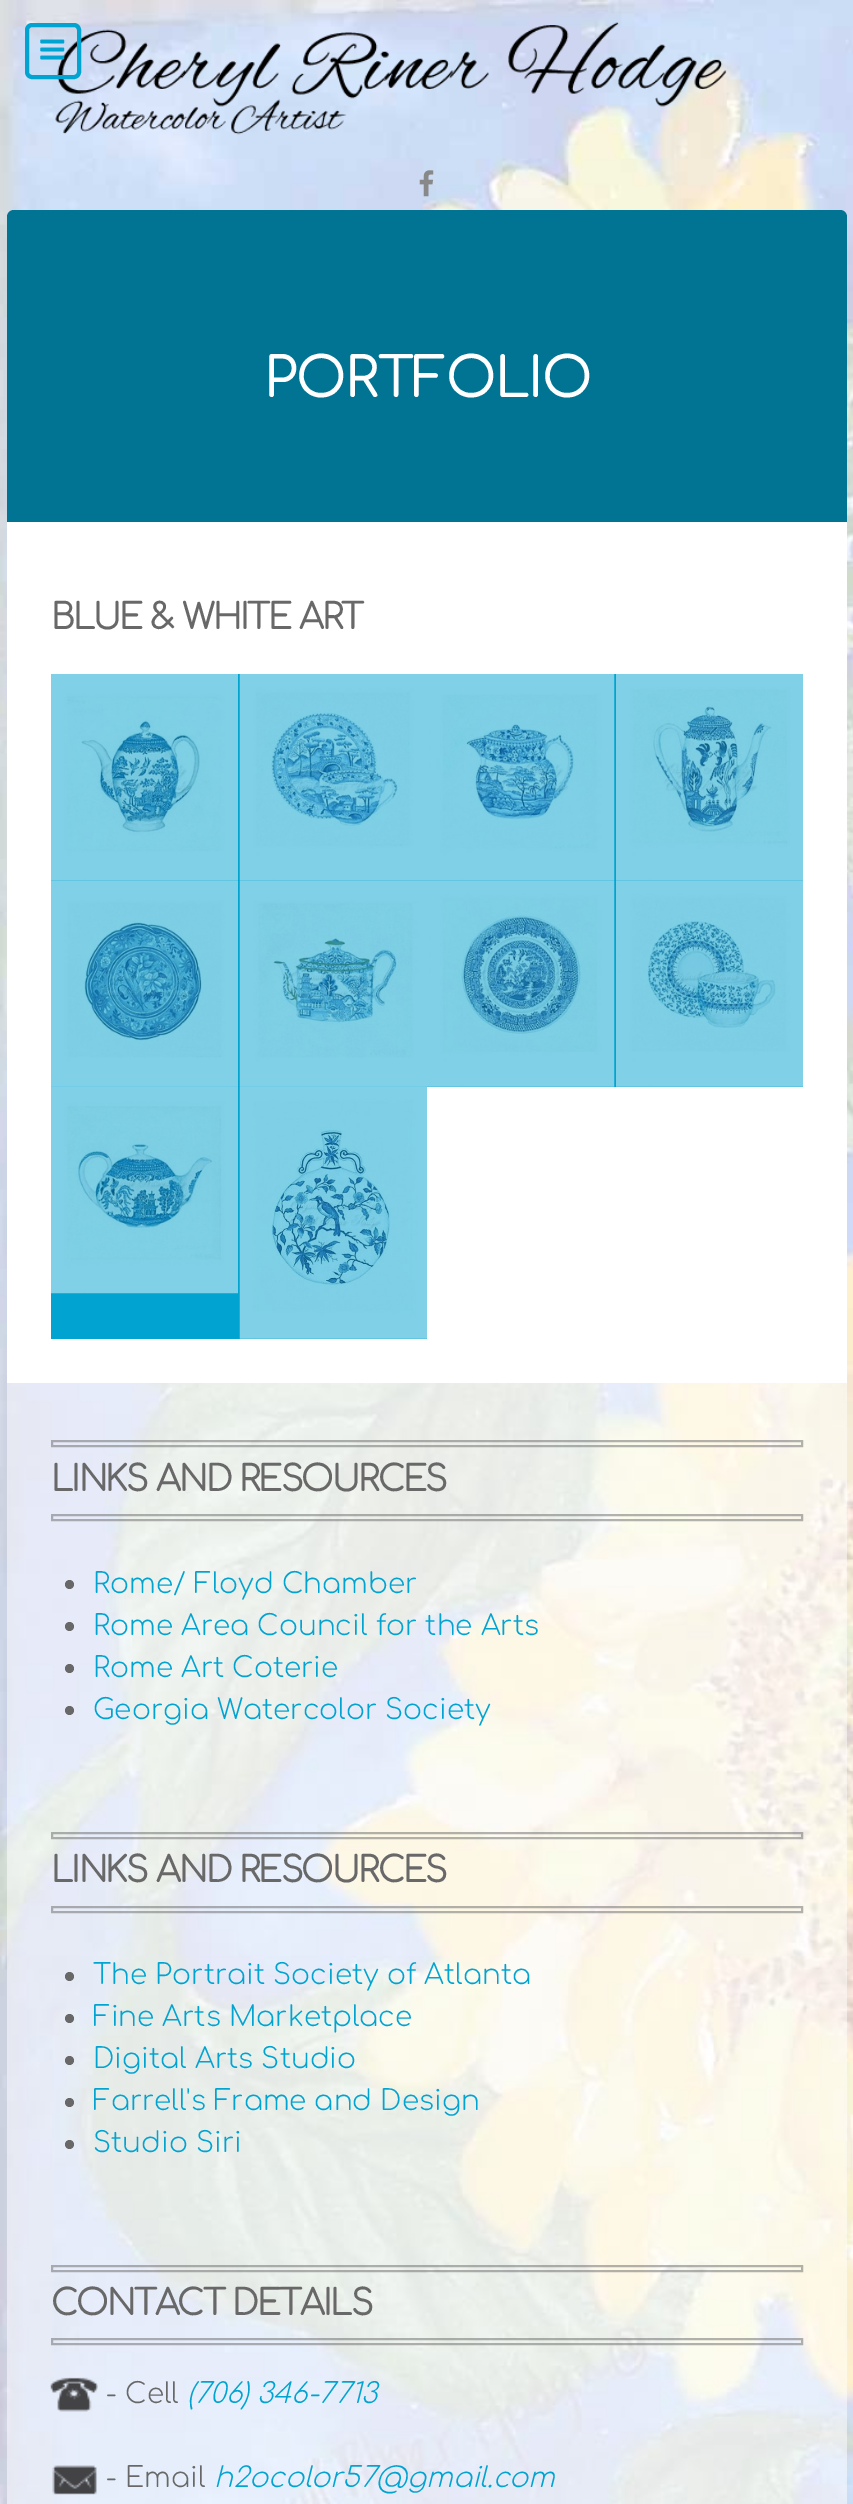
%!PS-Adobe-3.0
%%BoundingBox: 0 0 853 2504
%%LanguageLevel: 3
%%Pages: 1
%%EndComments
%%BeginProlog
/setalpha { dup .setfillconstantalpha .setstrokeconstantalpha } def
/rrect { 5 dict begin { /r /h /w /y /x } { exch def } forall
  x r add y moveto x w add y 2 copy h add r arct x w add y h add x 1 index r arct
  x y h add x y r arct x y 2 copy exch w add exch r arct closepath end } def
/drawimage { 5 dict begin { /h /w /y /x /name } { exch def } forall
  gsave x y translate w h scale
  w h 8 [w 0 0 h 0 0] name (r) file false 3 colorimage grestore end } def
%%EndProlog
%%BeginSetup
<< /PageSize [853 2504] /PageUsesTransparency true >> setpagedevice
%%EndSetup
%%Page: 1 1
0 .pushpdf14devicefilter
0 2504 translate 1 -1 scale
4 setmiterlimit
1 setgray
0 0 853 2504 rectfill
(images/1.raw) 0 0 853 2504 drawimage
(images/3.raw) 55 22 672 113 drawimage
0.004 0.639 0.82 setrgbcolor
4 setlinewidth
27 25 52 52 5 rrect stroke
(images/2.raw) 40 39 25 21 drawimage
(images/4.raw) 419 170 15 27 drawimage
0.004 0.455 0.58 setrgbcolor
newpath 14 210 moveto 840 210 lineto 844 210 847 213 847 217 curveto 847 522 lineto 7 522 lineto 7 217 lineto 7 213 10 210 14 210 curveto closepath fill
1 setgray
7 522 840 861 rectfill
0.004 0.639 0.82 setrgbcolor
51 674 752 206 rectfill
(images/5.raw) 51 674 187 206 drawimage
(images/6.raw) 239 674 188 206 drawimage
(images/7.raw) 427 674 188 206 drawimage
(images/8.raw) 616 674 187 206 drawimage
51 880 752 207 rectfill
(images/9.raw) 51 880 187 207 drawimage
(images/10.raw) 239 880 188 207 drawimage
(images/11.raw) 427 880 188 207 drawimage
(images/12.raw) 616 880 187 207 drawimage
51 1087 376 252 rectfill
(images/13.raw) 51 1086 187 208 drawimage
(images/14.raw) 239 1086 188 253 drawimage
0.5 setalpha
1 setgray
7 1383 840 1121 rectfill
0.408 setgray
2 setlinewidth
52 1441 750 5 rectstroke
52 1515 750 5 rectstroke
1 setalpha
newpath 69.5 1584.5 4.5 0 360 arc closepath fill
newpath 69.5 1626.5 4.5 0 360 arc closepath fill
newpath 69.5 1668.5 4.5 0 360 arc closepath fill
newpath 69.5 1710.5 4.5 0 360 arc closepath fill
0.5 setalpha
52 1833 750 5 rectstroke
52 1907 750 5 rectstroke
1 setalpha
newpath 69.5 1976.5 4.5 0 360 arc closepath fill
newpath 69.5 2018.5 4.5 0 360 arc closepath fill
newpath 69.5 2060.5 4.5 0 360 arc closepath fill
newpath 69.5 2102.5 4.5 0 360 arc closepath fill
newpath 69.5 2144.5 4.5 0 360 arc closepath fill
0.5 setalpha
52 2266 750 5 rectstroke
52 2339 750 5 rectstroke
1 setalpha
(images/15.raw) 50 2377 48 35 drawimage
(images/16.raw) 52 2465 45 30 drawimage
/Comfortaa-Bold [53.25 0 0 -53.25 0 0] selectfont
1 setgray
264 397 moveto (PORTFOLIO) show
/Comfortaa-Bold [35 0 0 -35 0 0] selectfont
0.408 setgray
51 629 moveto -1.75 0 (BLUE & WHITE ART) ashow
51 1491 moveto -1.75 0 (LINKS AND RESOURCES) ashow
/Comfortaa-Light [28 0 0 -28 0 0] selectfont
0.004 0.639 0.82 setrgbcolor
93 1593 moveto (Rome/ Floyd Chamber) show
93 1635 moveto (Rome Area Council for the Arts) show
93 1677 moveto (Rome Art Coterie) show
93 1719 moveto (Georgia Watercolor Society) show
/Comfortaa-Bold [35 0 0 -35 0 0] selectfont
0.408 setgray
51 1882 moveto -1.75 0 (LINKS AND RESOURCES) ashow
/Comfortaa-Light [28 0 0 -28 0 0] selectfont
0.004 0.639 0.82 setrgbcolor
93 1984 moveto (The Portrait Society of Atlanta) show
93 2026 moveto (Fine Arts Marketplace) show
93 2068 moveto (Digital Arts Studio) show
93 2110 moveto (Farrell's Frame and Design) show
93 2152 moveto (Studio Siri) show
/Comfortaa-Bold [35 0 0 -35 0 0] selectfont
0.408 setgray
51 2315 moveto -1.75 0 (CONTACT DETAILS) ashow
/Comfortaa-Light [28 0 0 -28 0 0] selectfont
106 2403 moveto (- Cell) show
/Comfortaa-LightItalic [28 0 0 -28 0 0] selectfont
0.004 0.639 0.82 setrgbcolor
187 2403 moveto (\(706\) 346-7713) show
/Comfortaa-Light [28 0 0 -28 0 0] selectfont
0.408 setgray
106 2487 moveto (- Email) show
/Comfortaa-LightItalic [28 0 0 -28 0 0] selectfont
0.004 0.639 0.82 setrgbcolor
214 2487 moveto (h2ocolor57@gmail.com) show
.poppdf14devicefilter showpage
%%EOF
